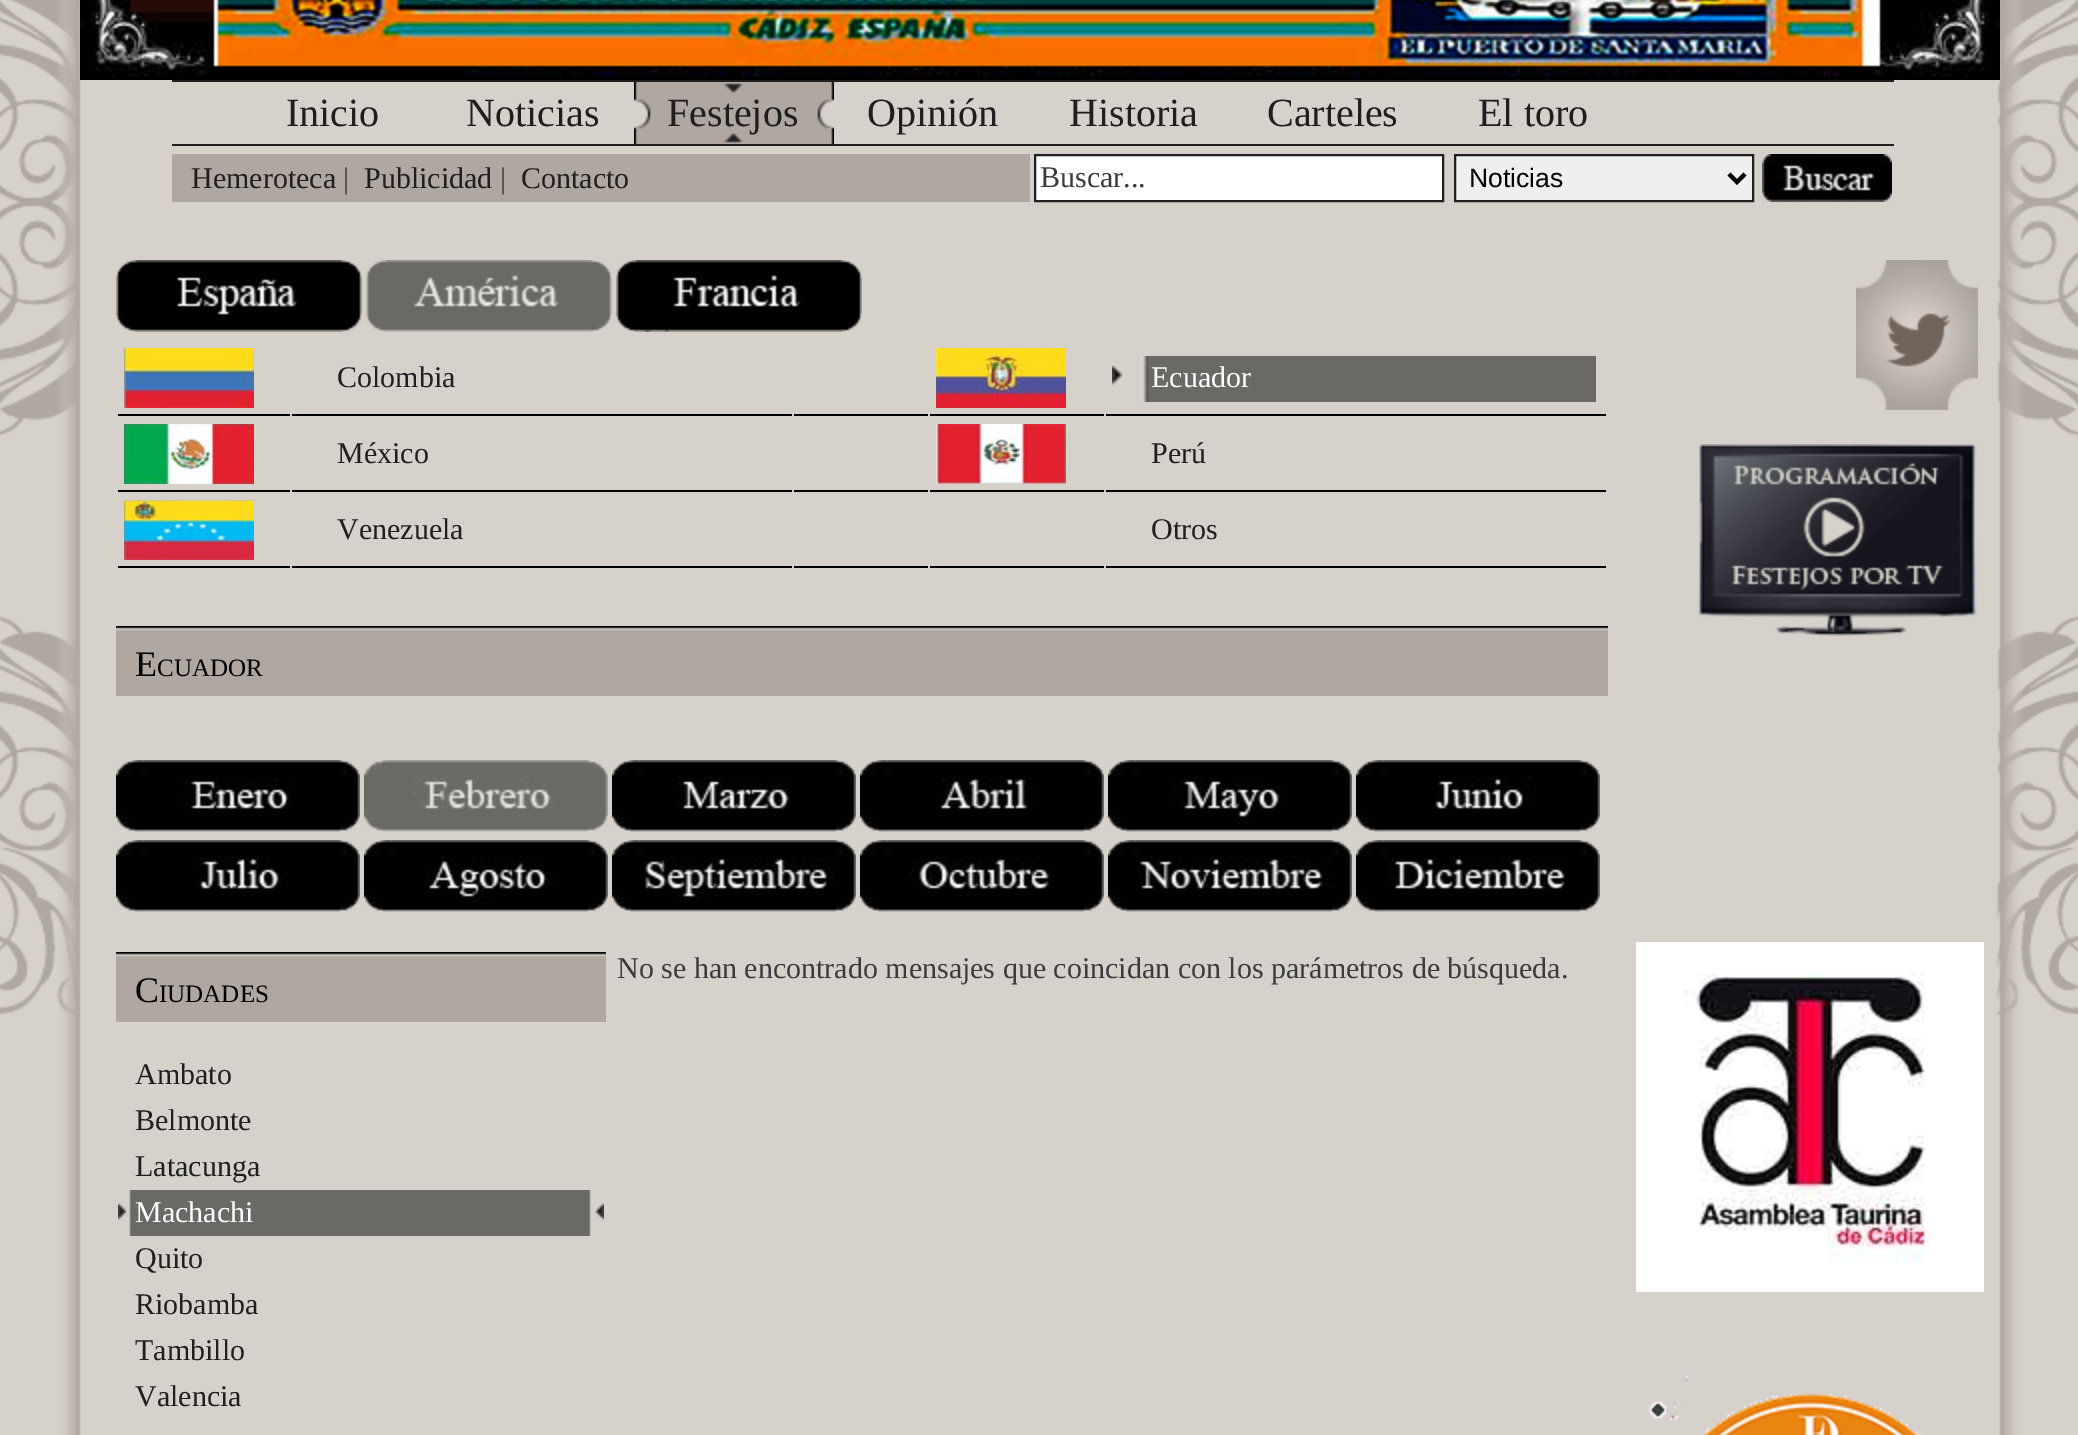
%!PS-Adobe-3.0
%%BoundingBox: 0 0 2078 1435
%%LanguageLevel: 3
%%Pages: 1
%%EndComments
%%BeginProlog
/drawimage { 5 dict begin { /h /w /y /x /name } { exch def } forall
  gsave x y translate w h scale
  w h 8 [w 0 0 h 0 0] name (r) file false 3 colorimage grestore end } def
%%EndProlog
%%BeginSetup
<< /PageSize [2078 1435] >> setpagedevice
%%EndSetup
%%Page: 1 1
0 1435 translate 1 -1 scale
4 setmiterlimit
0.839 0.824 0.796 setrgbcolor
0 0 2078 1435 rectfill
(images/1.raw) 0 0 2078 1016 drawimage
(images/2.raw) 57 0 1966 1435 drawimage
0 setgray
80 77 1920 3 rectfill
(images/3.raw) 80 0 1920 77 drawimage
0.122 setgray
172 80 1722 2 rectfill
172 144 1722 2 rectfill
(images/4.raw) 634 82 200 62 drawimage
0.686 0.655 0.627 setrgbcolor
172 154 858 48 rectfill
1 setgray
newpath 1035 155 moveto 1443 155 lineto 1443 201 lineto 1035 201 lineto closepath gsave fill grestore
0.122 setgray
2 setlinewidth
stroke
0.937 setgray
newpath 1455 155 moveto 1753 155 lineto 1753 201 lineto 1455 201 lineto closepath gsave fill grestore
0.122 setgray
stroke
0 setgray
4 setlinewidth
newpath 1729 174 moveto 1737 182 lineto 1745 174 lineto stroke
(images/5.raw) 1762 154 130 48 drawimage
(images/6.raw) 116 260 246 72 drawimage
(images/7.raw) 366 260 246 72 drawimage
(images/8.raw) 616 260 246 72 drawimage
118 414 172 2 rectfill
(images/9.raw) 124 348 130 60 drawimage
292 414 500 2 rectfill
930 414 174 2 rectfill
(images/10.raw) 936 348 130 60 drawimage
1106 414 500 2 rectfill
(images/11.raw) 1112 356 484 46 drawimage
794 414 134 2 rectfill
118 490 172 2 rectfill
(images/12.raw) 124 424 130 60 drawimage
292 490 500 2 rectfill
930 490 174 2 rectfill
(images/13.raw) 936 424 130 60 drawimage
1106 490 500 2 rectfill
794 490 134 2 rectfill
118 566 172 2 rectfill
(images/14.raw) 124 500 130 60 drawimage
292 566 500 2 rectfill
1106 566 500 2 rectfill
794 566 134 2 rectfill
930 566 174 2 rectfill
(images/15.raw) 116 626 1492 70 drawimage
(images/16.raw) 116 760 244 72 drawimage
(images/17.raw) 364 760 244 72 drawimage
(images/18.raw) 612 760 244 72 drawimage
(images/19.raw) 860 760 244 72 drawimage
(images/20.raw) 1108 760 244 72 drawimage
(images/21.raw) 1356 760 244 72 drawimage
(images/22.raw) 116 840 244 72 drawimage
(images/23.raw) 364 840 244 72 drawimage
(images/24.raw) 612 840 244 72 drawimage
(images/25.raw) 860 840 244 72 drawimage
(images/26.raw) 1108 840 244 72 drawimage
(images/27.raw) 1356 840 244 72 drawimage
(images/28.raw) 116 952 490 70 drawimage
(images/29.raw) 118 1190 486 46 drawimage
(images/30.raw) 1856 260 122 150 drawimage
(images/31.raw) 1698 444 279 192 drawimage
(images/32.raw) 1636 942 348 350 drawimage
(images/33.raw) 1649 1374 272 61 drawimage
/LiberationSerif-Regular [40 0 0 -40 0 0] selectfont
0.122 setgray
286 126 moveto (Inicio) show
466 126 moveto (Noticias) show
667 126 moveto (Festejos) show
867 126 moveto (Opinión) show
1069 126 moveto (Historia) show
1267 126 moveto (Carteles) show
1478 126 moveto (El toro) show
/LiberationSerif-Regular [30 0 0 -30 0 0] selectfont
191 188 moveto (Hemeroteca) show
0.227 0.231 0.243 setrgbcolor
343 188 moveto (|) show
0.122 setgray
364 188 moveto (Publicidad) show
0.227 0.231 0.243 setrgbcolor
500 188 moveto (|) show
0.122 setgray
521 188 moveto (Contacto) show
0.227 0.231 0.243 setrgbcolor
1040 187 moveto (Buscar...) show
/LiberationSans-Regular [26.5 0 0 -26.5 0 0] selectfont
0 setgray
1469 187 moveto (Noticias) show
/LiberationSerif-Regular [30 0 0 -30 0 0] selectfont
0.122 setgray
337 387 moveto (Colombia) show
1 setgray
1151 387 moveto (Ecuador) show
0.122 setgray
337 463 moveto (México) show
1151 463 moveto (Perú) show
337 539 moveto (Venezuela) show
1151 539 moveto (Otros) show
/LiberationSerif-Regular [36 0 0 -36 0 0] selectfont
0 setgray
135 676 moveto (E) show
/LiberationSerif-Regular [25 0 0 -25 0 0] selectfont
157 676 moveto (CUADOR) show
/LiberationSerif-Regular [30 0 0 -30 0 0] selectfont
0.227 0.231 0.243 setrgbcolor
617 978 moveto (No se han encontrado mensajes que coincidan con los parámetros de búsqueda.) show
/LiberationSerif-Regular [36 0 0 -36 0 0] selectfont
0 setgray
135 1002 moveto (C) show
/LiberationSerif-Regular [25 0 0 -25 0 0] selectfont
159 1002 moveto (IUDADES) show
/LiberationSerif-Regular [30 0 0 -30 0 0] selectfont
0.122 setgray
135 1084 moveto (Ambato) show
135 1130 moveto (Belmonte) show
135 1176 moveto (Latacunga) show
1 setgray
135 1222 moveto (Machachi) show
0.122 setgray
135 1268 moveto (Quito) show
135 1314 moveto (Riobamba) show
135 1360 moveto (Tambillo) show
135 1406 moveto (Valencia) show
showpage
%%EOF
